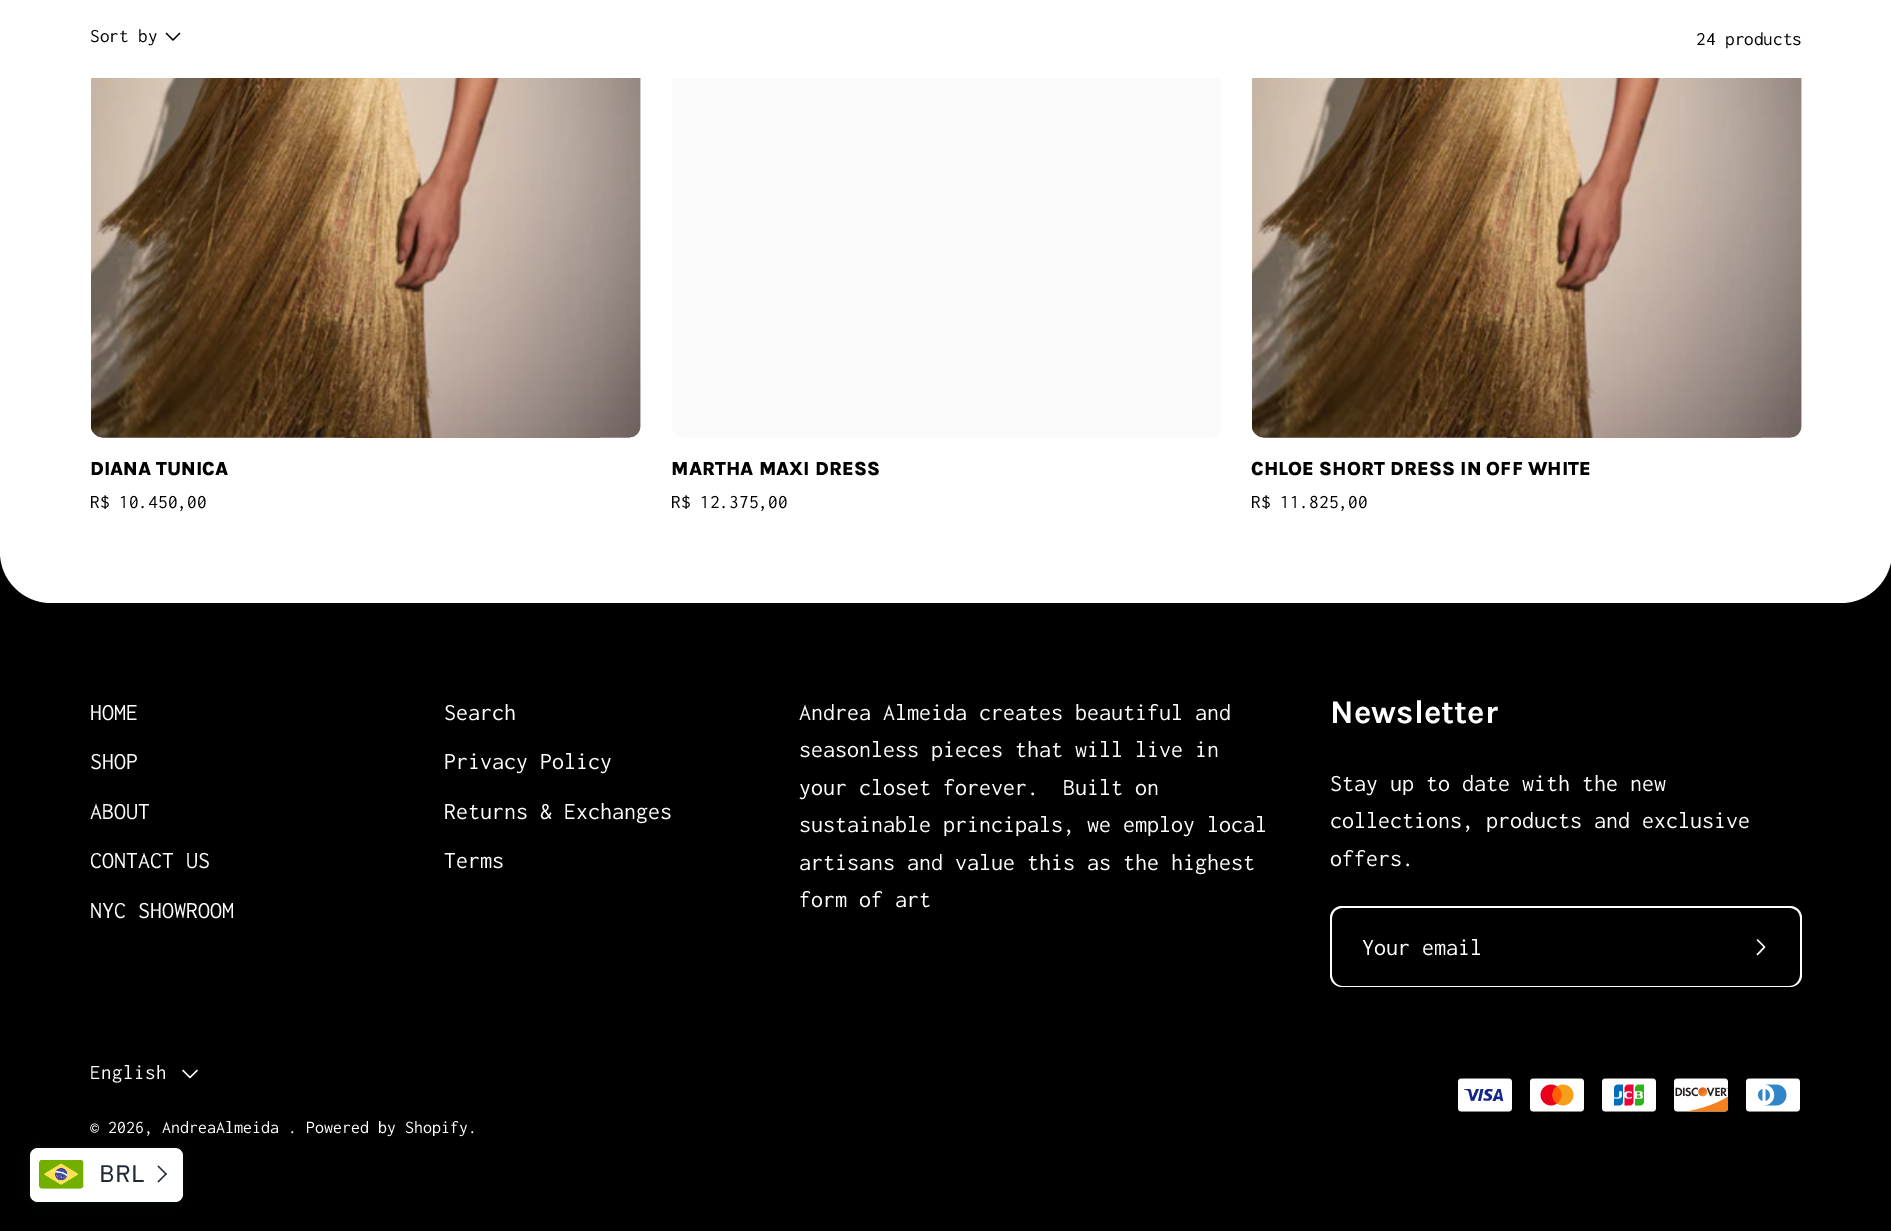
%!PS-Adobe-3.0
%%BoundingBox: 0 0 1891 1231
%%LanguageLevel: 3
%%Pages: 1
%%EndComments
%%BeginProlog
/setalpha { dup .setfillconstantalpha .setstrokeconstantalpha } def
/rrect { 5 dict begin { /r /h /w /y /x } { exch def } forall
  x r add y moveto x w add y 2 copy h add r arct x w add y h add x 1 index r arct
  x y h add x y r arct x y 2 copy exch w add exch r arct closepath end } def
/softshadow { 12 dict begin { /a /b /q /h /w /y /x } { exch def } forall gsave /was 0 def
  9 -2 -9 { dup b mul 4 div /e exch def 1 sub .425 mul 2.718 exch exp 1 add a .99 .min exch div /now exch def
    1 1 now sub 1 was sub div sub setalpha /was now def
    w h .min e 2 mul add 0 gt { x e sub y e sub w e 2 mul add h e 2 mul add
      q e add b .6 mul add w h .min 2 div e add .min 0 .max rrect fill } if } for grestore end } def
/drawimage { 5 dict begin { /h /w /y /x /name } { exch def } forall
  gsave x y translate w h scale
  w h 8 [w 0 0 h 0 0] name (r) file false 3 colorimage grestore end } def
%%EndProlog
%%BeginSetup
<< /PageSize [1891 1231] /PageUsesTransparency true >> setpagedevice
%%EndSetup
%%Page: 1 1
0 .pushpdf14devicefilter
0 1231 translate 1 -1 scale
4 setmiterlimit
0 setgray
0 0 1891 1231 rectfill
1 setgray
newpath 0 -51 moveto 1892 -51 lineto 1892 552 lineto 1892 580 1869 603 1841 603 curveto 51 603 lineto 23 603 0 580 0 552 curveto closepath fill
gsave
671 -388 550 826 12 rrect clip newpath
672 -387 551 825 12 rrect clip newpath
0.98 setgray
newpath 684 -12 moveto 1221 -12 lineto 1221 426 lineto 1221 432.5 1215.5 438 1209 438 curveto 684 438 lineto 677.5 438 672 432.5 672 426 curveto 672 0 lineto 672 -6.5 677.5 -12 684 -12 curveto closepath fill
grestore
672 0 549 78 rectfill
0 setgray
1.3 setlinewidth
1 setlinecap
1 setlinejoin
newpath 179.5 33.5 moveto 173 40 lineto 166.5 33.5 lineto stroke
(images/1.raw) 91 78 550 360 drawimage
(images/1.raw) 1252 78 550 360 drawimage
1 setgray
newpath 1342 906 moveto 1720 906 lineto 1720 987 lineto 1342 987 lineto 1336 987 1330 982 1330 975 curveto 1330 918 lineto 1330 911 1336 906 1342 906 curveto closepath 1342 908 moveto 1720 908 lineto 1720 986 lineto 1342 986 lineto 1337 986 1332 981 1332 975 curveto 1332 918 lineto 1332 912 1337 908 1342 908 curveto closepath eofill
newpath 1720 906 moveto 1790 906 lineto 1796 906 1802 911 1802 918 curveto 1802 975 lineto 1802 982 1796 987 1790 987 curveto 1720 987 lineto closepath 1720 908 moveto 1790 908 lineto 1795 908 1800 912 1800 918 curveto 1800 975 lineto 1800 981 1795 986 1790 986 curveto 1720 986 lineto closepath eofill
1.4 setlinewidth
newpath 1757.5 940 moveto 1764.5 947 lineto 1757.5 954.5 lineto stroke
newpath 197 1070.5 moveto 190 1077.5 lineto 183 1070.5 lineto stroke
(images/2.raw) 1458 1078 54 34 drawimage
(images/3.raw) 1530 1078 54 34 drawimage
(images/4.raw) 1602 1078 54 34 drawimage
(images/5.raw) 1674 1078 55 34 drawimage
(images/6.raw) 1746 1078 54 34 drawimage
0.129 0.169 0.212 setrgbcolor
30 1148 153 54 8 4 0.25 softshadow
1 setgray
30 1148 153 54 8 rrect fill
(images/7.raw) 39 1160 45 29 drawimage
0.129 0.169 0.212 setrgbcolor
newpath 157.5 1166.5 moveto 158.5 1165.5 lineto 167 1174 lineto 166 1175 lineto closepath fill
newpath 157.5 1181.5 moveto 166 1173 lineto 167 1174 lineto 158.5 1182.5 lineto closepath fill
/Inconsolata-Regular [19.25 0 0 -19.25 0 0] selectfont
0 setgray
90 42 moveto (Sort by) show
1696 45 moveto (24 products) show
/Karla-ExtraBold [19.4 0 0 -19.4 0 0] selectfont
90 475 moveto (DIANA TUNICA) show
/Inconsolata-Regular [19.4 0 0 -19.4 0 0] selectfont
90 508 moveto (R$ 10.450,00) show
/Karla-ExtraBold [19.4 0 0 -19.4 0 0] selectfont
671 475 moveto (MARTHA MAXI DRESS) show
/Inconsolata-Regular [19.4 0 0 -19.4 0 0] selectfont
671 508 moveto (R$ 12.375,00) show
/Karla-ExtraBold [19.4 0 0 -19.4 0 0] selectfont
1251 475 moveto (CHLOE SHORT DRESS IN OFF WHITE) show
/Inconsolata-Regular [19.4 0 0 -19.4 0 0] selectfont
1251 508 moveto (R$ 11.825,00) show
/Inconsolata-Regular [24 0 0 -24 0 0] selectfont
1 setgray
90 720 moveto (HOME) show
90 769 moveto (SHOP) show
90 819 moveto (ABOUT) show
90 868 moveto (CONTACT US) show
90 918 moveto (NYC SHOWROOM) show
444 720 moveto (Search) show
444 769 moveto (Privacy Policy) show
444 819 moveto (Returns & Exchanges) show
444 868 moveto (Terms) show
799 720 moveto (Andrea Almeida creates beautiful and) show
799 757 moveto (seasonless pieces that will live in) show
799 795 moveto (your closet forever.  Built on) show
799 832 moveto (sustainable principals, we employ local) show
799 870 moveto (artisans and value this as the highest) show
799 907 moveto (form of art) show
/Karla-Bold [33 0 0 -33 0 0] selectfont
1330 723 moveto (Newsletter) show
/Inconsolata-Regular [24 0 0 -24 0 0] selectfont
1330 791 moveto (Stay up to date with the new) show
1330 828 moveto (collections, products and exclusive) show
1330 866 moveto (offers.) show
1362 955 moveto (Your email) show
/Inconsolata-Regular [21 0 0 -21 0 0] selectfont
90 1079 moveto 0.5 0 (English) ashow
/Inconsolata-Regular [18 0 0 -18 0 0] selectfont
90 1133 moveto (© 2026, AndreaAlmeida . Powered by Shopify.) show
/Overpass-Regular [24 0 0 -24 0 0] selectfont
0.129 0.169 0.212 setrgbcolor
99 1182 moveto (BRL) show
.poppdf14devicefilter showpage
%%EOF
